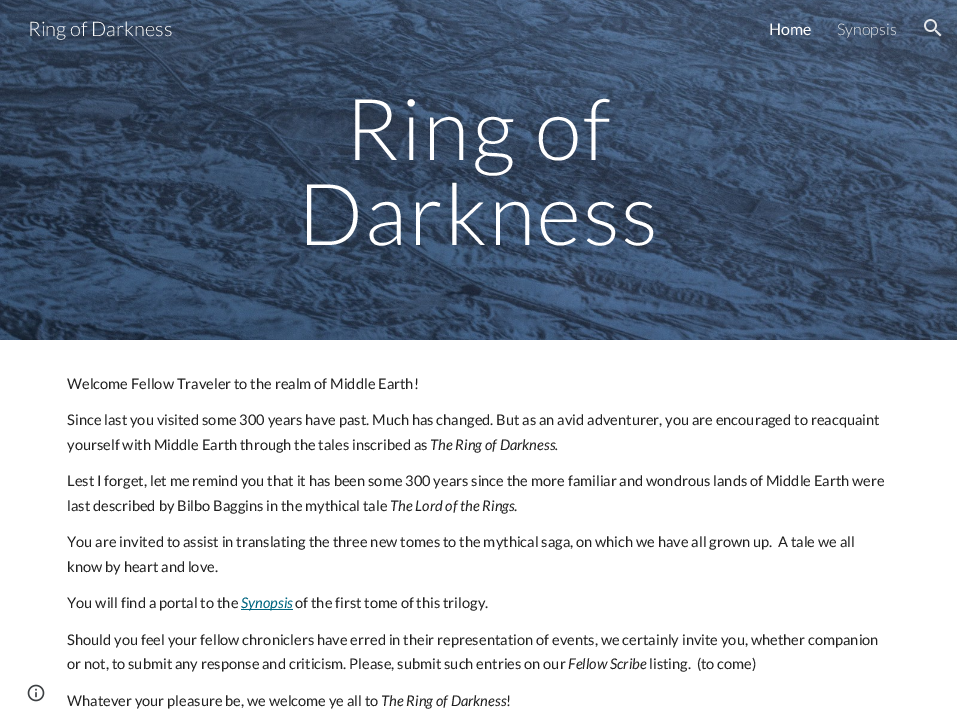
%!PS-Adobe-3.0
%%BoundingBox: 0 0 957 727
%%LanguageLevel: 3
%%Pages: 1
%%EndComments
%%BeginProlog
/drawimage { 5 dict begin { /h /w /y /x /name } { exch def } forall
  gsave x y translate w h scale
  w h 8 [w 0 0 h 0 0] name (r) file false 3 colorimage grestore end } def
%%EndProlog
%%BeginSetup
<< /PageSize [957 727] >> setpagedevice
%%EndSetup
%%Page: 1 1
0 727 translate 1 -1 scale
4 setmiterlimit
1 setgray
0 0 957 727 rectfill
(images/3.raw) 0 0 957 340 drawimage
(images/1.raw) 924 19 18 18 drawimage
(images/2.raw) 27 684 18 18 drawimage
0 0.396 0.502 setrgbcolor
241 609 52 1 rectfill
/Lato-Light [20 0 0 -20 0 0] selectfont
1 setgray
28 36 moveto (Ring of Darkness) show
/Lato-Regular [16 0 0 -16 0 0] selectfont
769 35 moveto (Home) show
/Lato-Light [16 0 0 -16 0 0] selectfont
0.902 0.914 0.925 setrgbcolor
837 35 moveto (Synopsis) show
/Lato-Light [85.5 0 0 -85.5 0 0] selectfont
1 setgray
345 160 moveto 2 0 (Ring of) ashow
298 245 moveto 2 0 (Darkness) ashow
/Lato-Regular [14.67 0 0 -14.67 0 0] selectfont
0.129 setgray
67 389 moveto (Welcome Fellow Traveler to the realm of Middle Earth!) show
67 425 moveto (Since last you visited some 300 years have past. Much has changed. But as an avid adventurer, you are encouraged to reacquaint) show
67 450 moveto (yourself with Middle Earth through the tales inscribed as) show
/Lato-Italic [14.67 0 0 -14.67 0 0] selectfont
430 450 moveto (The Ring of Darkness.) show
/Lato-Regular [14.67 0 0 -14.67 0 0] selectfont
67 486 moveto (Lest I forget, let me remind you that it has been some 300 years since the more familiar and wondrous lands of Middle Earth were) show
67 511 moveto (last described by Bilbo Baggins in the mythical tale) show
/Lato-Italic [14.67 0 0 -14.67 0 0] selectfont
390 511 moveto (The Lord of the Rings) show
/Lato-Regular [14.67 0 0 -14.67 0 0] selectfont
514 511 moveto (.) show
67 547 moveto (You are invited to assist in translating the three new tomes to the mythical saga, on which we have all grown up.  A tale we all) show
67 572 moveto (know by heart and love.) show
67 608 moveto (You will find a portal to the) show
/Lato-Italic [14.67 0 0 -14.67 0 0] selectfont
0 0.396 0.502 setrgbcolor
241 608 moveto (Synopsis) show
/Lato-Regular [14.67 0 0 -14.67 0 0] selectfont
0.129 setgray
295 608 moveto (of the first tome of this trilogy.) show
67 645 moveto (Should you feel your fellow chroniclers have erred in their representation of events, we certainly invite you, whether companion) show
67 669 moveto (or not, to submit any response and criticism. Please, submit such entries on our) show
/Lato-Italic [14.67 0 0 -14.67 0 0] selectfont
568 669 moveto (Fellow Scribe) show
/Lato-Regular [14.67 0 0 -14.67 0 0] selectfont
649 669 moveto (listing.  \(to come\)) show
67 706 moveto (Whatever your pleasure be, we welcome ye all to) show
/Lato-Italic [14.67 0 0 -14.67 0 0] selectfont
381 706 moveto (The Ring of Darkness) show
/Lato-Regular [14.67 0 0 -14.67 0 0] selectfont
506 706 moveto (!) show
showpage
%%EOF
